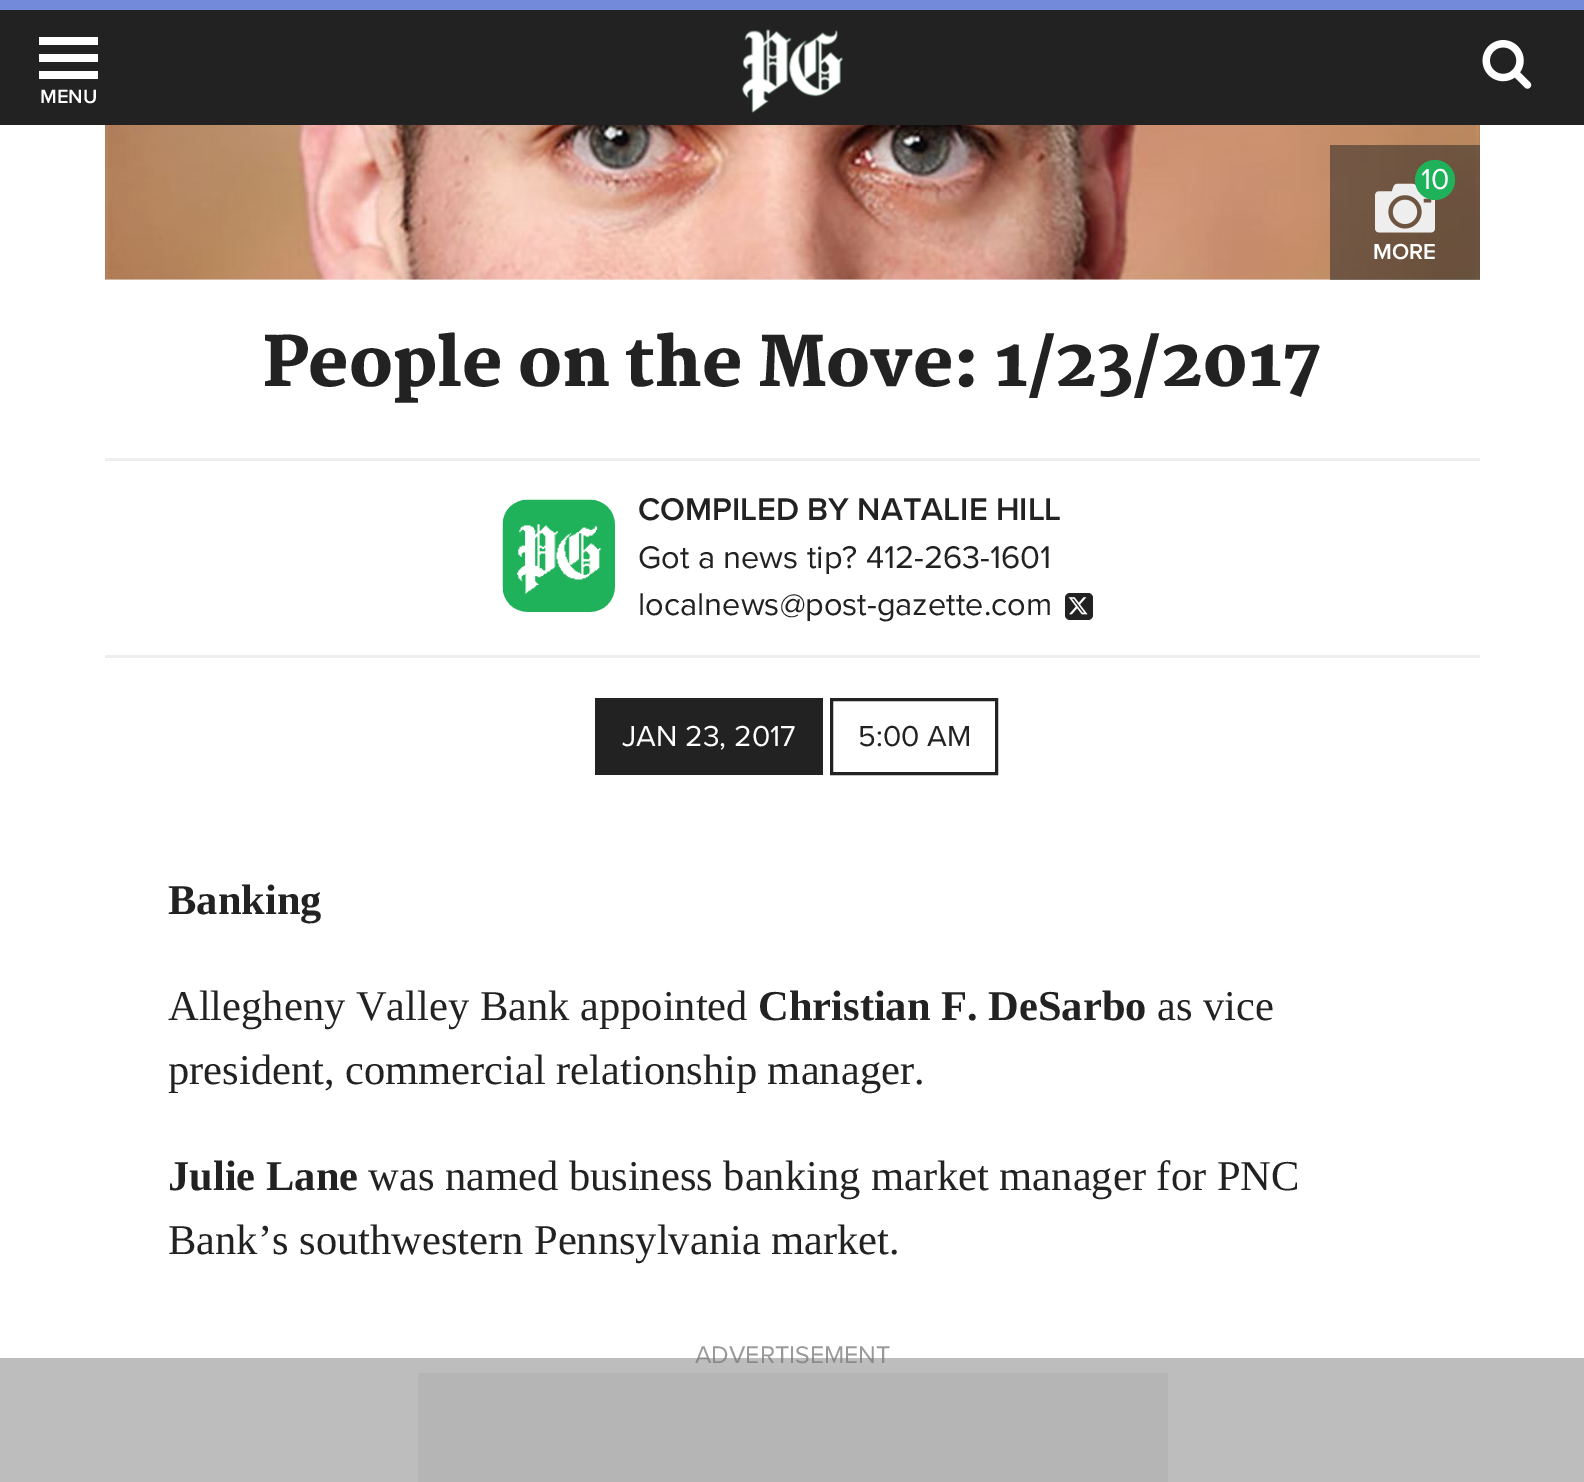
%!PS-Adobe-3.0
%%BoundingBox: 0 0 1584 1482
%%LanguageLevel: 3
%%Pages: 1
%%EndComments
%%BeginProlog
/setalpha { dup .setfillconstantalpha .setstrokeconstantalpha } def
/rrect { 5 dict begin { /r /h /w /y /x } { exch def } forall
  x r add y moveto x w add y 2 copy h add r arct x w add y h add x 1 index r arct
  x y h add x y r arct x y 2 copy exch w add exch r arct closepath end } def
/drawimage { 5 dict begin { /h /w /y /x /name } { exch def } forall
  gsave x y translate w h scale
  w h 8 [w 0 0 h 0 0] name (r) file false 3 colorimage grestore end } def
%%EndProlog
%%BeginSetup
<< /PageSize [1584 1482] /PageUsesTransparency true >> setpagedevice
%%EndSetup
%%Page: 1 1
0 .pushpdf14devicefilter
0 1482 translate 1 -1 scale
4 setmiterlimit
1 setgray
0 0 1584 1482 rectfill
0.133 setgray
0 10 1584 115 rectfill
0.451 0.537 0.851 setrgbcolor
0 0 1584 10 rectfill
(images/1.raw) 742 29 101 84 drawimage
(images/2.raw) 1482 40 50 49 drawimage
1 setgray
newpath 39 37 moveto 98 37 lineto 98 45 lineto 39 45 lineto closepath 39 54 moveto 98 54 lineto 98 62 lineto 39 62 lineto closepath 39 71 moveto 98 71 lineto 98 79 lineto 39 79 lineto closepath fill
0.933 setgray
105 279 1375 1 rectfill
(images/3.raw) 105 125 1375 155 drawimage
0.5 setalpha
0.133 setgray
1330 145 150 135 rectfill
1 setalpha
(images/4.raw) 1375 183 60 50 drawimage
0.122 0.698 0.353 setrgbcolor
newpath 1435 180 20 0 360 arc closepath fill
0.933 setgray
105 458 1375 3 rectfill
105 655 1375 3 rectfill
(images/5.raw) 502 499 113 113 drawimage
0.133 setgray
1065 593 28 27 5 rrect fill
(images/6.raw) 1068 597 20 18 drawimage
595 698 228 77 rectfill
3 setlinewidth
831.5 699.5 165 74 rectstroke
0.933 setgray
418 1373 750 109 rectfill
/ProximaNova-SemiBold [20 0 0 -20 0 0] selectfont
1 setgray
40 103 moveto (MENU) show
/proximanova-Regular [30 0 0 -30 0 0] selectfont
1421 189 moveto (10) show
/ProximaNova-SemiBold [22.5 0 0 -22.5 0 0] selectfont
1373 259 moveto (MORE) show
/Martel-Black [67.5 0 0 -67.5 0 0] selectfont
0.133 setgray
263 386 moveto (People on the Move: 1/23/2017) show
/ProximaNova-SemiBold [32.5 0 0 -32.5 0 0] selectfont
638 520 moveto (COMPILED BY NATALIE HILL) show
/proximanova-Regular [32.5 0 0 -32.5 0 0] selectfont
638 568 moveto (Got a news tip? 412-263-1601) show
638 615 moveto (localnews@post-gazette.com) show
/proximanova-Regular [30 0 0 -30 0 0] selectfont
1 setgray
622 746 moveto (JAN 23, 2017) show
0.133 setgray
858 746 moveto (5:00 AM) show
/LiberationSerif-Bold [42.5 0 0 -42.5 0 0] selectfont
168 914 moveto (Banking) show
/LiberationSerif-Regular [42.5 0 0 -42.5 0 0] selectfont
168 1020 moveto (Allegheny Valley Bank appointed) show
/LiberationSerif-Bold [42.5 0 0 -42.5 0 0] selectfont
758 1020 moveto (Christian F. DeSarbo) show
/LiberationSerif-Regular [42.5 0 0 -42.5 0 0] selectfont
1157 1020 moveto (as vice) show
168 1084 moveto (president, commercial relationship manager.) show
/LiberationSerif-Bold [42.5 0 0 -42.5 0 0] selectfont
168 1190 moveto (Julie Lane) show
/LiberationSerif-Regular [42.5 0 0 -42.5 0 0] selectfont
368 1190 moveto (was named business banking market manager for PNC) show
168 1254 moveto (Bank’s southwestern Pennsylvania market.) show
/proximanova-Regular [25 0 0 -25 0 0] selectfont
0.6 setgray
695 1363 moveto (ADVERTISEMENT) show
0.5 setalpha
0.486 setgray
0 1358 1584 124 rectfill
.poppdf14devicefilter showpage
%%EOF
